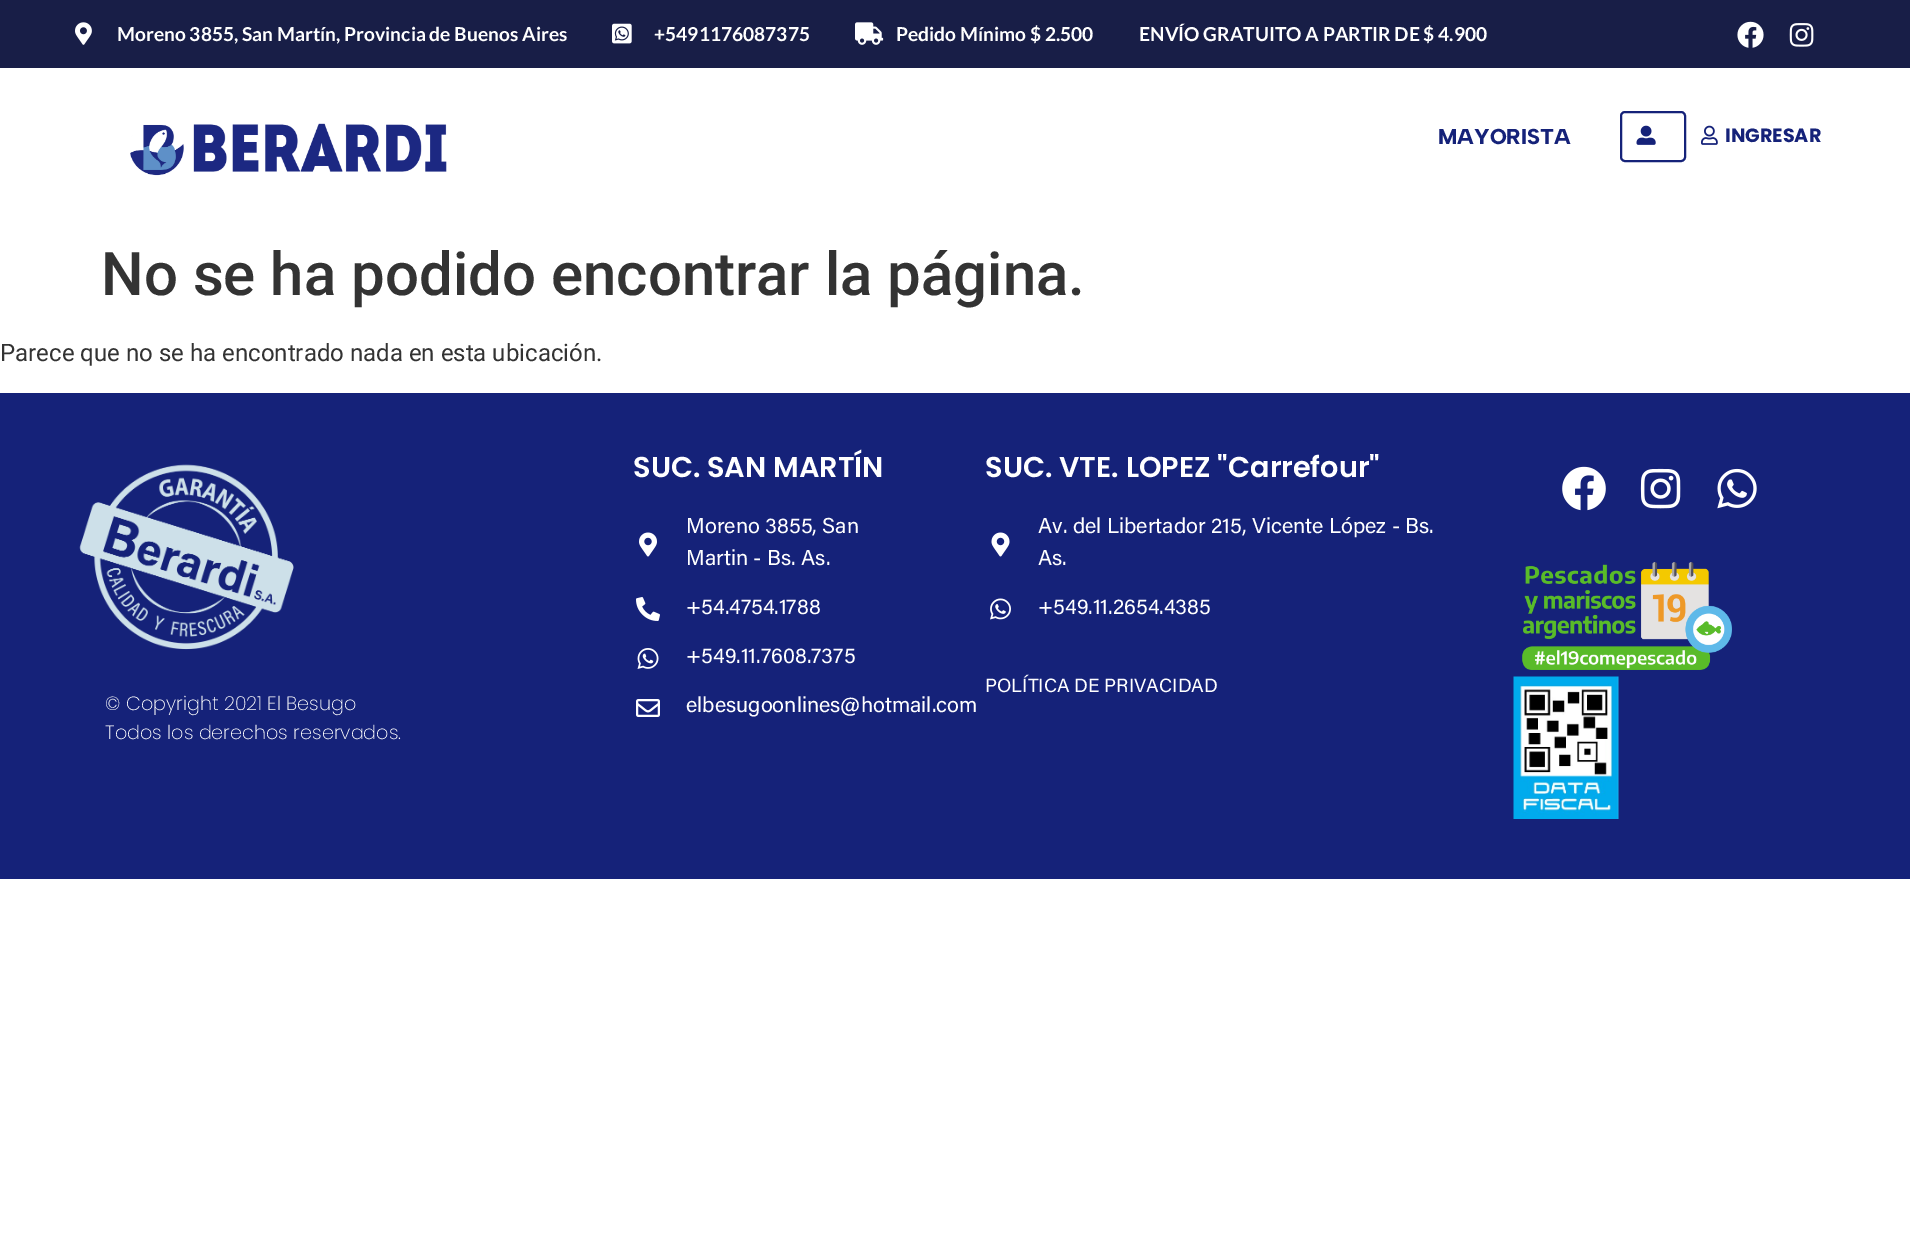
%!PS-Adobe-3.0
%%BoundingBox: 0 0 1910 1237
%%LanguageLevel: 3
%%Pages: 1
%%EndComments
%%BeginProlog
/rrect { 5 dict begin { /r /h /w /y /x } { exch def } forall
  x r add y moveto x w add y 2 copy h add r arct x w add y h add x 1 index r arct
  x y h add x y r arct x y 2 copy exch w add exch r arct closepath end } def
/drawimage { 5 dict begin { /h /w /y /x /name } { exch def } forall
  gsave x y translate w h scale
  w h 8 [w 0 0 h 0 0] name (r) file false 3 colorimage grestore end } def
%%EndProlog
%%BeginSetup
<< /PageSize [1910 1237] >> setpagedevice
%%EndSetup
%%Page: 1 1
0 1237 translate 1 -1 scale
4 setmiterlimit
1 setgray
0 0 1910 1237 rectfill
0.094 0.118 0.278 setrgbcolor
0 0 1910 68 rectfill
(images/1.raw) 75 22 17 23 drawimage
(images/2.raw) 612 23 20 21 drawimage
(images/3.raw) 855 22 29 23 drawimage
(images/4.raw) 1737 21 27 27 drawimage
(images/5.raw) 1789 23 25 24 drawimage
(images/6.raw) 130 123 317 53 drawimage
0.082 0.133 0.475 setrgbcolor
2 setlinewidth
1621 112 64 49 4 rrect stroke
(images/7.raw) 1636 125 20 20 drawimage
(images/8.raw) 1701 125 17 20 drawimage
0 393 1910 486 rectfill
(images/9.raw) 79 464 215 186 drawimage
(images/10.raw) 639 532 18 25 drawimage
(images/11.raw) 636 597 24 24 drawimage
(images/12.raw) 637 648 22 21 drawimage
(images/13.raw) 636 699 24 18 drawimage
(images/14.raw) 991 532 19 25 drawimage
(images/15.raw) 990 598 21 22 drawimage
(images/16.raw) 1562 466 44 45 drawimage
(images/17.raw) 1640 468 41 41 drawimage
(images/18.raw) 1717 468 40 41 drawimage
(images/19.raw) 1522 562 210 108 drawimage
(images/20.raw) 1513 676 106 143 drawimage
/Lato-Bold [19.2 0 0 -19.2 0 0] selectfont
1 setgray
117 41 moveto (Moreno 3855, San Martín, Provincia de Buenos Aires) show
654 41 moveto (+5491176087375) show
896 41 moveto (Pedido Mínimo $ 2.500) show
1139 41 moveto (ENVÍO GRATUITO A PARTIR DE $ 4.900) show
/AlbertSans-ExtraBold [21.6 0 0 -21.6 0 0] selectfont
0.082 0.133 0.475 setrgbcolor
1438 144 moveto (MAYORISTA) show
/Poppins-Bold [19.2 0 0 -19.2 0 0] selectfont
1725 142 moveto (INGRESAR) show
/Roboto-Medium [60 0 0 -60 0 0] selectfont
0.2 setgray
101 295 moveto (No se ha podido encontrar la página.) show
/Roboto-Regular [24 0 0 -24 0 0] selectfont
0 361 moveto (Parece que no se ha encontrado nada en esta ubicación.) show
/Poppins-ExtraLight [19.2 0 0 -19.2 0 0] selectfont
1 setgray
105 710 moveto (© Copyright 2021 El Besugo) show
105 739 moveto (Todos los derechos reservados.) show
/Poppins-SemiBold [28.75 0 0 -28.75 0 0] selectfont
633 477 moveto (SUC. SAN MARTÍN) show
/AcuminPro-Regular [21.6 0 0 -21.6 0 0] selectfont
686 533 moveto (Moreno 3855, San) show
686 565 moveto (Martin - Bs. As.) show
686 614 moveto (+54.4754.1788) show
686 663 moveto (+549.11.7608.7375) show
686 712 moveto (elbesugoonlines@hotmail.com) show
/Poppins-SemiBold [28.75 0 0 -28.75 0 0] selectfont
985 477 moveto (SUC. VTE. LOPEZ "Carrefour") show
/AcuminPro-Regular [21.6 0 0 -21.6 0 0] selectfont
1038 533 moveto (Av. del Libertador 215, Vicente López - Bs.) show
1038 565 moveto (As.) show
1038 614 moveto (+549.11.2654.4385) show
/AcuminPro-Regular [19.2 0 0 -19.2 0 0] selectfont
985 692 moveto (POLÍTICA DE PRIVACIDAD) show
showpage
%%EOF
